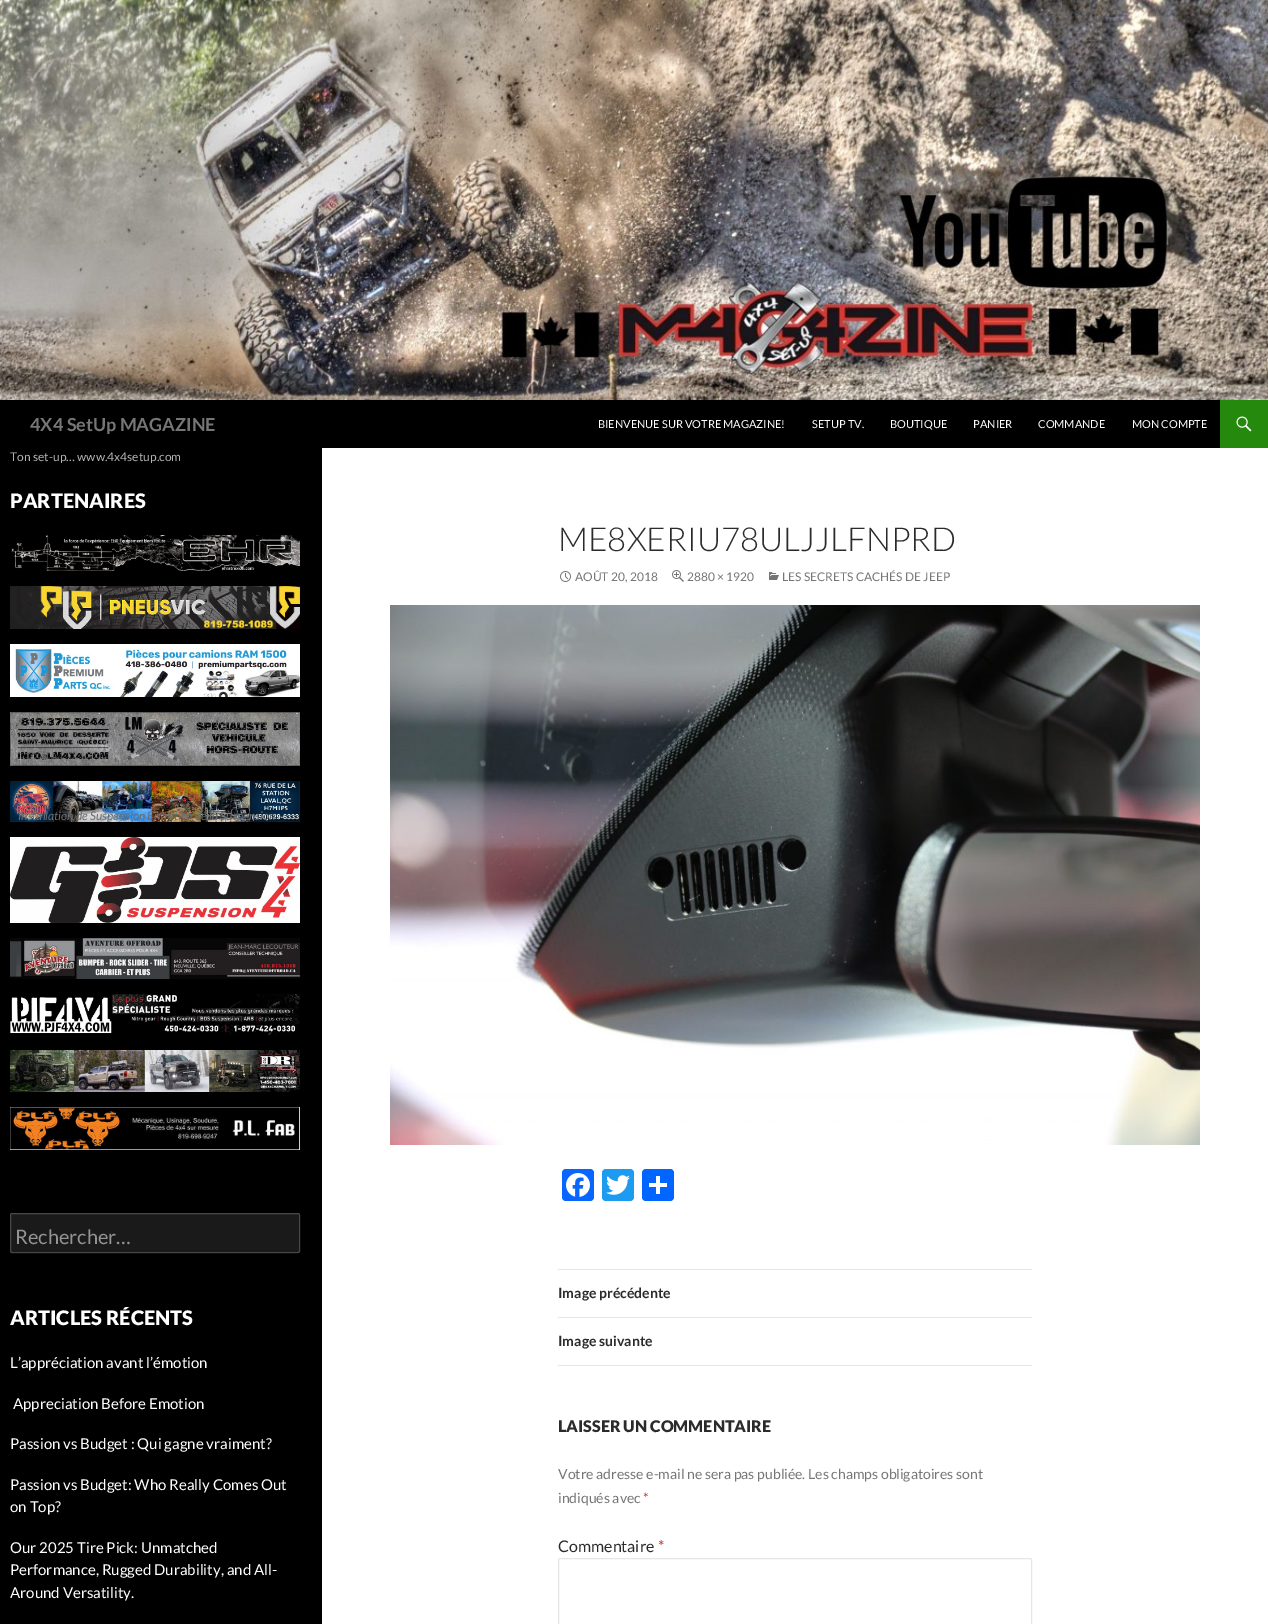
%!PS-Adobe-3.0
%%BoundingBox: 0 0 1268 1624
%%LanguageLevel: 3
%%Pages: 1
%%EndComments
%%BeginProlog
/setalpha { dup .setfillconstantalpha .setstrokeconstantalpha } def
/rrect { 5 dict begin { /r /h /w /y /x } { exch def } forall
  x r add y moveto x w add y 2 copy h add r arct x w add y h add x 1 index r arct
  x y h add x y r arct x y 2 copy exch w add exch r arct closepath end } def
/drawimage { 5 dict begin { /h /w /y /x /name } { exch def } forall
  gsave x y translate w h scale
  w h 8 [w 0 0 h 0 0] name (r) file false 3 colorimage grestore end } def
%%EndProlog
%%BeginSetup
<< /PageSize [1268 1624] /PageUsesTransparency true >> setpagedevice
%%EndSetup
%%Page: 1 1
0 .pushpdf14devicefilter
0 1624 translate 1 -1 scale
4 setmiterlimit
1 setgray
0 0 1268 1624 rectfill
(images/1.raw) 0 0 1268 400 drawimage
0 setgray
0 400 1220 48 rectfill
0.141 0.537 0.051 setrgbcolor
1220 400 48 48 rectfill
(images/2.raw) 1236 416 16 16 drawimage
0 setgray
0 448 322 1176 rectfill
(images/3.raw) 11 535 289 36 drawimage
(images/4.raw) 10 586 290 43 drawimage
(images/5.raw) 10 644 290 53 drawimage
(images/6.raw) 10 712 290 54 drawimage
(images/7.raw) 10 781 290 41 drawimage
(images/8.raw) 10 837 290 86 drawimage
(images/9.raw) 10 938 290 41 drawimage
(images/10.raw) 10 994 290 41 drawimage
(images/11.raw) 10 1050 290 42 drawimage
(images/12.raw) 10 1107 290 43 drawimage
0.102 setgray
10 1213 290 40 2 rrect fill
0.2 setalpha
1 setgray
10.5 1213.5 289 39 1.5 rrect stroke
1 setalpha
(images/13.raw) 560 571 11 11 drawimage
(images/14.raw) 672 570 12 12 drawimage
(images/15.raw) 769 572 10 8 drawimage
(images/16.raw) 390 605 810 540 drawimage
0.031 0.4 1 setrgbcolor
562 1169 32 32 4 rrect fill
(images/17.raw) 566 1173 24 24 drawimage
0.114 0.608 0.941 setrgbcolor
602 1169 32 32 4 rrect fill
(images/18.raw) 606 1175 24 20 drawimage
0.004 0.4 1 setrgbcolor
642 1169 32 32 4 rrect fill
1 setgray
656 1176 4 18 rectfill
649 1183 18 4 rectfill
0.902 setgray
558 1269 474 1 rectfill
558 1317 474 1 rectfill
558 1365 474 1 rectfill
558.5 1558.5 473 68 1.5 rrect stroke
/Lato-Bold [18 0 0 -18 0 0] selectfont
0.463 setgray
30 431 moveto (4X4 SetUp MAGAZINE) show
/Lato-Regular [11 0 0 -11 0 0] selectfont
1 setgray
598 428 moveto (BIENVENUE SUR VOTRE MAGAZINE!) show
812 428 moveto (SETUP TV.) show
890 428 moveto (BOUTIQUE) show
973 428 moveto (PANIER) show
1038 428 moveto (COMMANDE) show
1132 428 moveto (MON COMPTE) show
/Lato-Regular [12 0 0 -12 0 0] selectfont
0.702 setgray
10 461 moveto (Ton set-up… www.4x4setup.com) show
/Lato-Black [20 0 0 -20 0 0] selectfont
1 setgray
10 508 moveto (PARTENAIRES) show
/Lato-Italic [12 0 0 -12 0 0] selectfont
0.404 0.431 0.459 setrgbcolor
18 820 moveto (Installation de Suspension Entretien de la Suspension) show
/Lato-Regular [20 0 0 -20 0 0] selectfont
0.576 setgray
15 1244 moveto (Rechercher…) show
/Lato-Black [20 0 0 -20 0 0] selectfont
1 setgray
10 1325 moveto (ARTICLES RÉCENTS) show
/Lato-Regular [15 0 0 -15 0 0] selectfont
10 1368 moveto (L’appréciation avant l’émotion) show
13 1409 moveto (Appreciation Before Emotion) show
10 1449 moveto (Passion vs Budget : Qui gagne vraiment?) show
10 1490 moveto (Passion vs Budget: Who Really Comes Out) show
10 1512 moveto (on Top?) show
10 1553 moveto (Our 2025 Tire Pick: Unmatched) show
10 1575 moveto (Performance, Rugged Durability, and All-) show
10 1598 moveto (Around Versatility.) show
/Lato-Light [33 0 0 -33 0 0] selectfont
0.169 setgray
558 551 moveto (ME8XERIU78ULJJLFNPRD) show
/Lato-Regular [12 0 0 -12 0 0] selectfont
0.463 setgray
575 581 moveto (AOÛT 20, 2018) show
687 581 moveto (2880 × 1920) show
782 581 moveto (LES SECRETS CACHÉS DE JEEP) show
/Lato-Bold [14 0 0 -14 0 0] selectfont
0.169 setgray
558 1298 moveto (Image précédente) show
558 1346 moveto (Image suivante) show
/Lato-Black [16 0 0 -16 0 0] selectfont
558 1432 moveto (LAISSER UN COMMENTAIRE) show
/Lato-Regular [14 0 0 -14 0 0] selectfont
0.463 setgray
558 1479 moveto (Votre adresse e-mail ne sera pas publiée. Les champs obligatoires sont) show
558 1503 moveto (indiqués avec) show
0.753 0.224 0.169 setrgbcolor
643 1503 moveto (*) show
/Lato-Regular [16 0 0 -16 0 0] selectfont
0.169 setgray
558 1552 moveto (Commentaire) show
0.753 0.224 0.169 setrgbcolor
658 1552 moveto (*) show
.poppdf14devicefilter showpage
%%EOF
